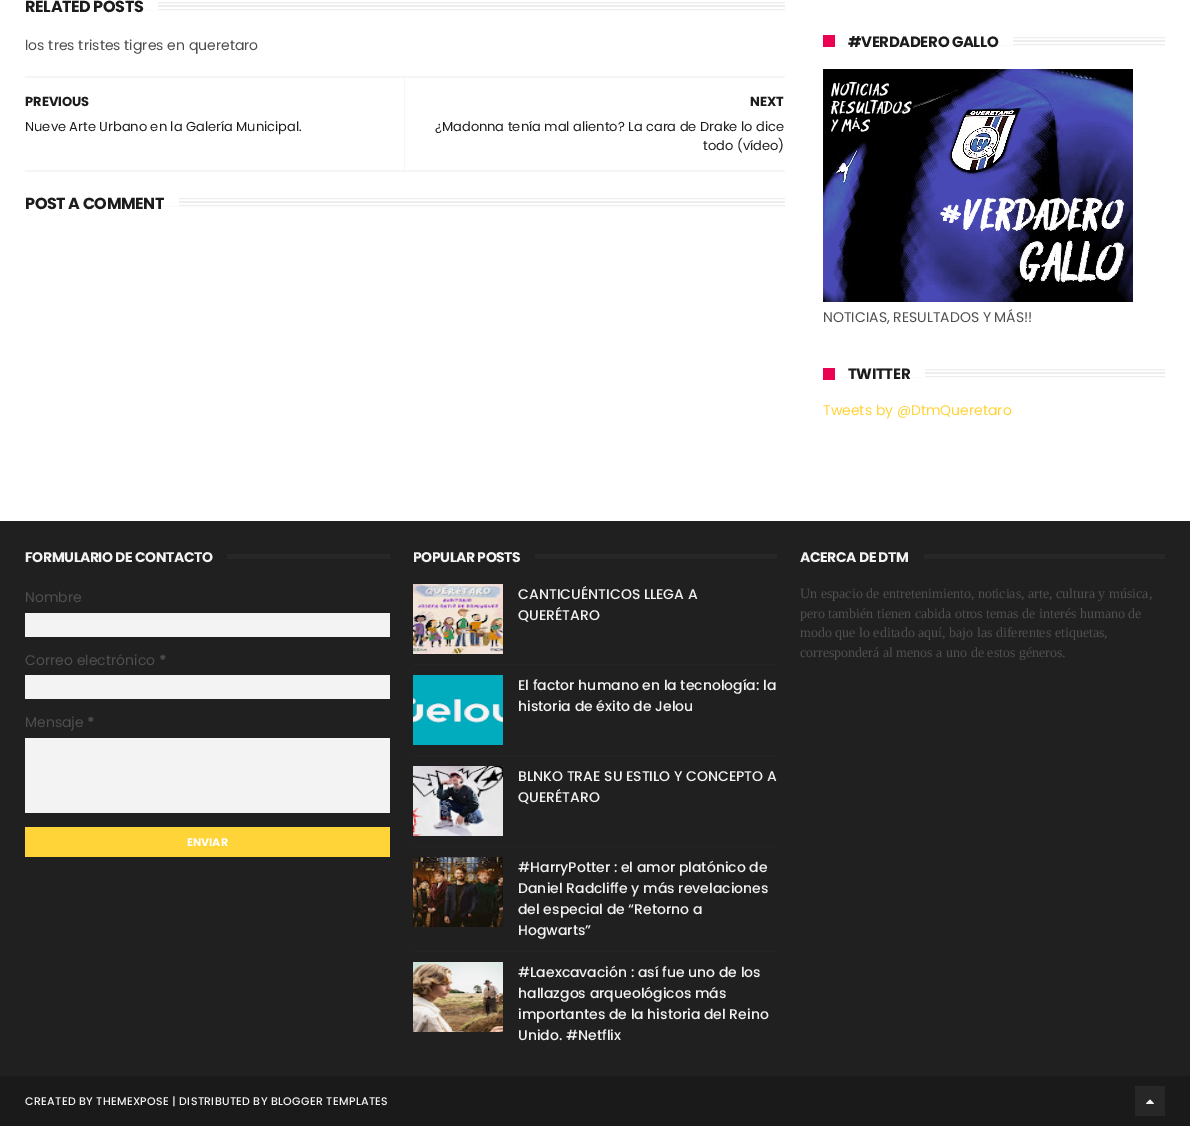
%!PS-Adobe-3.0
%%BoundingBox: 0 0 1190 1126
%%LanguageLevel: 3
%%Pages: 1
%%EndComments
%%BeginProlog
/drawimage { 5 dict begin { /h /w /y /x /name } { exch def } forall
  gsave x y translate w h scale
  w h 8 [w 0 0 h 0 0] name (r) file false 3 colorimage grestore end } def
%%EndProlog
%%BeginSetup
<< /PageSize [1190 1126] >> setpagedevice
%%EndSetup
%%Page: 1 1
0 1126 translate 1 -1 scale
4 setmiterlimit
1 setgray
0 0 1190 1126 rectfill
gsave
25 0 760 221 rectclip
0.933 setgray
25.5 2.5 767 7 rectstroke
grestore
25 2 133 8 rectfill
0.933 setgray
158 5 627 2 rectfill
0.961 setgray
25 76 760 2 rectfill
25 170 760 2 rectfill
404 78 1 92 rectfill
gsave
25 0 760 221 rectclip
0.933 setgray
25.5 198.5 767 7 rectstroke
grestore
1 setgray
25 198 154 8 rectfill
0.933 setgray
179 201 606 2 rectfill
gsave
823 25 342 302 rectclip
823.5 37.5 349 7 rectstroke
grestore
1 setgray
823 37 190 8 rectfill
0.918 0.008 0.325 setrgbcolor
823 35 12 12 rectfill
0.933 setgray
1013 40 152 2 rectfill
(images/1.raw) 823 69 310 233 drawimage
gsave
823 357 342 64 rectclip
823.5 369.5 349 7 rectstroke
grestore
1 setgray
823 369 102 8 rectfill
0.918 0.008 0.325 setrgbcolor
823 368 12 12 rectfill
0.933 setgray
925 372 240 2 rectfill
0.125 setgray
0 521 1190 555 rectfill
0.153 setgray
227 554 163 5 rectfill
0.953 setgray
25 613 365 24 rectfill
25 675 365 24 rectfill
25 738 365 75 rectfill
1 0.831 0.224 setrgbcolor
25 827 365 30 rectfill
0.153 setgray
535 554 242 5 rectfill
(images/2.raw) 413 584 90 70 drawimage
[1 1] 0 setdash
newpath 413 664.5 moveto 777 664.5 lineto stroke
(images/3.raw) 413 675 90 70 drawimage
newpath 413 755.5 moveto 777 755.5 lineto stroke
(images/4.raw) 413 766 90 70 drawimage
newpath 413 846.5 moveto 777 846.5 lineto stroke
(images/5.raw) 413 857 90 70 drawimage
newpath 413 951.5 moveto 777 951.5 lineto stroke
(images/6.raw) 413 962 90 70 drawimage
924 554 241 5 rectfill
0.102 setgray
0 1076 1190 50 rectfill
0.153 setgray
1135 1086 30 30 rectfill
(images/7.raw) 1146 1099 8 5 drawimage
/Poppins-Bold [16 0 0 -16 0 0] selectfont
0.11 setgray
25 12 moveto -0.4 0 (RELATED POSTS) ashow
/Poppins-Regular [14 0 0 -14 0 0] selectfont
0.31 setgray
25 50 moveto (los tres tristes tigres en queretaro) show
/Poppins-Bold [13 0 0 -13 0 0] selectfont
0.11 setgray
25 106 moveto (PREVIOUS) show
/Poppins-Regular [13 0 0 -13 0 0] selectfont
25 131 moveto (Nueve Arte Urbano en la Galería Municipal.) show
/Poppins-Bold [13 0 0 -13 0 0] selectfont
750 106 moveto (NEXT) show
/Poppins-Regular [13 0 0 -13 0 0] selectfont
435 131 moveto (¿Madonna tenía mal aliento? La cara de Drake lo dice) show
703 150 moveto (todo \(vídeo\)) show
/Poppins-Bold [16 0 0 -16 0 0] selectfont
25 209 moveto -0.4 0 (POST A COMMENT) ashow
/Poppins-Bold [15 0 0 -15 0 0] selectfont
848 47 moveto -0.4 0 (#VERDADERO GALLO) ashow
/Poppins-Regular [14 0 0 -14 0 0] selectfont
0.31 setgray
823 322 moveto (NOTICIAS, RESULTADOS Y MÁS!!) show
/Poppins-Bold [15 0 0 -15 0 0] selectfont
0.11 setgray
848 379 moveto -0.4 0 (TWITTER) ashow
/Poppins-Regular [14 0 0 -14 0 0] selectfont
1 0.831 0.224 setrgbcolor
823 415 moveto (Tweets by @DtmQueretaro) show
/Poppins-Bold [14 0 0 -14 0 0] selectfont
0.949 setgray
25 562 moveto -0.4 0 (FORMULARIO DE CONTACTO) ashow
/Poppins-Regular [14 0 0 -14 0 0] selectfont
0.31 setgray
25 602 moveto (Nombre) show
25 665 moveto (Correo electrónico) show
/Poppins-Bold [14 0 0 -14 0 0] selectfont
159 665 moveto (*) show
/Poppins-Regular [14 0 0 -14 0 0] selectfont
25 727 moveto (Mensaje) show
/Poppins-Bold [14 0 0 -14 0 0] selectfont
87 727 moveto (*) show
/Poppins-Bold [11 0 0 -11 0 0] selectfont
1 setgray
187 846 moveto (ENVIAR) show
/Poppins-Bold [14 0 0 -14 0 0] selectfont
0.949 setgray
413 562 moveto -0.4 0 (POPULAR POSTS) ashow
/Poppins-Medium [14 0 0 -14 0 0] selectfont
518 599 moveto (CANTICUÉNTICOS LLEGA A) show
518 620 moveto (QUERÉTARO) show
518 690 moveto (El factor humano en la tecnología: la) show
518 711 moveto (historia de éxito de Jelou) show
518 781 moveto (BLNKO TRAE SU ESTILO Y CONCEPTO A) show
518 802 moveto (QUERÉTARO) show
518 872 moveto (#HarryPotter : el amor platónico de) show
518 893 moveto (Daniel Radcliffe y más revelaciones) show
518 914 moveto (del especial de “Retorno a) show
518 935 moveto (Hogwarts”) show
518 977 moveto (#Laexcavación : así fue uno de los) show
518 998 moveto (hallazgos arqueológicos más) show
518 1019 moveto (importantes de la historia del Reino) show
518 1040 moveto (Unido. #Netflix) show
/Poppins-Bold [14 0 0 -14 0 0] selectfont
800 562 moveto -0.4 0 (ACERCA DE DTM) ashow
/LiberationSerif-Regular [14 0 0 -14 0 0] selectfont
0.31 setgray
800 598 moveto (Un espacio de entretenimiento, noticias, arte, cultura y música,) show
800 618 moveto (pero también tienen cabida otros temas de interés humano de) show
800 637 moveto (modo que lo editado aquí, bajo las diferentes etiquetas,) show
800 657 moveto (corresponderá al menos a uno de estos géneros.) show
/Poppins-Medium [11 0 0 -11 0 0] selectfont
0.949 setgray
25 1105 moveto 0.3 0 (CREATED BY THEMEXPOSE | DISTRIBUTED BY BLOGGER TEMPLATES) ashow
showpage
%%EOF
